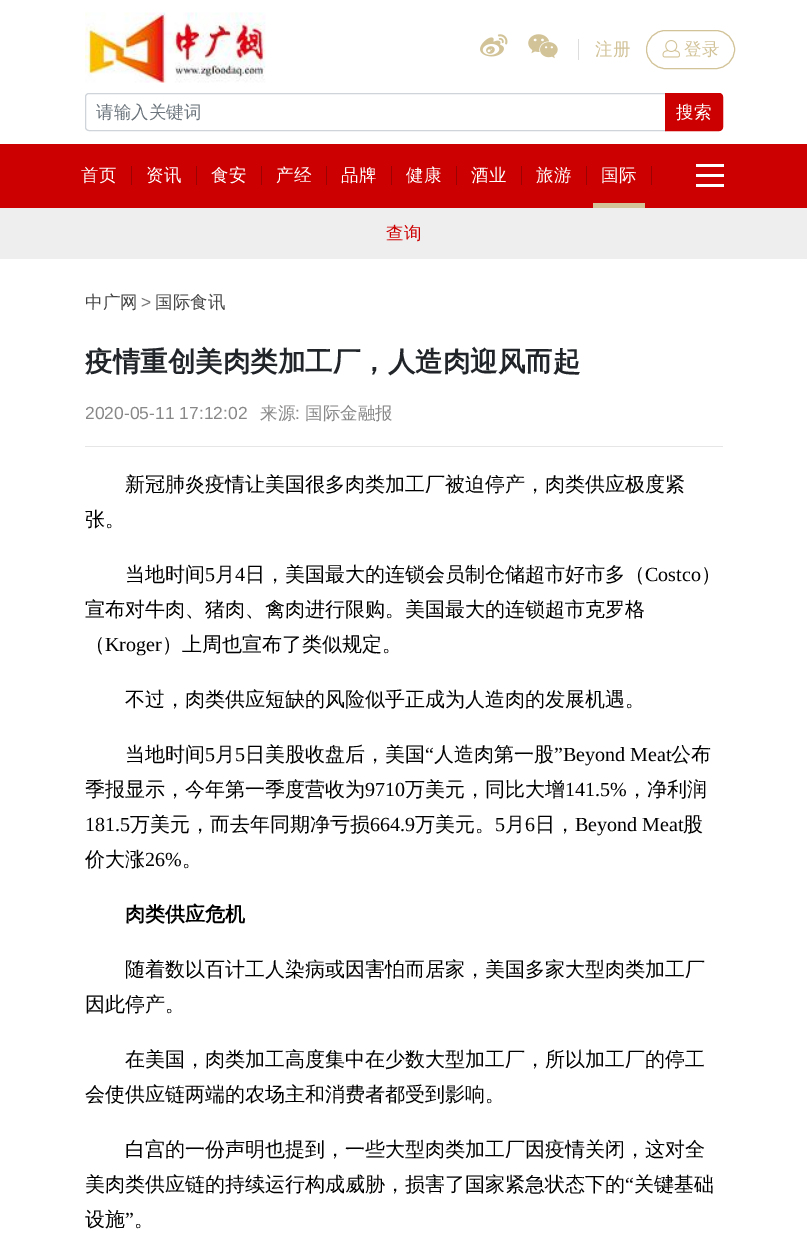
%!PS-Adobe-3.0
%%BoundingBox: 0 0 807 1243
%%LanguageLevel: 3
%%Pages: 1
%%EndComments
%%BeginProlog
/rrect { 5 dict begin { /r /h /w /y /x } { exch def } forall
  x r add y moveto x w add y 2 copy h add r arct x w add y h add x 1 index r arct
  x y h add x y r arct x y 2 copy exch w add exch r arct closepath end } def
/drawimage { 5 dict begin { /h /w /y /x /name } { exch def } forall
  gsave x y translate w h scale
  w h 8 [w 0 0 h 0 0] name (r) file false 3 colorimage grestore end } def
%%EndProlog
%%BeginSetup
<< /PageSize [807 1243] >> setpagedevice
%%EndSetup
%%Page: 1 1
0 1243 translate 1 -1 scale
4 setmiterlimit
1 setgray
0 0 807 1243 rectfill
(images/1.raw) 85 12 181 71 drawimage
(images/2.raw) 480 34 28 23 drawimage
(images/3.raw) 528 34 30 25 drawimage
0.867 setgray
578 39 1 21 rectfill
0.824 0.765 0.596 setrgbcolor
646.5 30.5 88 38 19 rrect stroke
(images/4.raw) 662 40 18 18 drawimage
0.808 0.831 0.855 setrgbcolor
newpath 89 93.5 moveto 665.5 93.5 lineto 665.5 130.5 lineto 89 130.5 lineto 87 130.5 85.5 129 85.5 127 curveto 85.5 97 lineto 85.5 95 87 93.5 89 93.5 curveto closepath stroke
0.804 0 0.004 setrgbcolor
newpath 665.5 93.5 moveto 719 93.5 lineto 721 93.5 722.5 95 722.5 97 curveto 722.5 127 lineto 722.5 129 721 130.5 719 130.5 curveto 665.5 130.5 lineto closepath gsave fill grestore
stroke
0 144 807 64 rectfill
0.6 0.012 0.012 setrgbcolor
131 166 1 19 rectfill
196 166 1 19 rectfill
261 166 1 19 rectfill
326 166 1 19 rectfill
391 166 1 19 rectfill
456 166 1 19 rectfill
521 166 1 19 rectfill
586 166 1 19 rectfill
0.824 0.765 0.596 setrgbcolor
593 203 52 5 rectfill
0.6 0.012 0.012 setrgbcolor
651 166 1 19 rectfill
1 setgray
696 164 28 3 rectfill
696 174 28 3 rectfill
696 184 28 3 rectfill
0.933 setgray
0 208 807 51 rectfill
0.902 setgray
85 446 638 1 rectfill
/WenQuanYiZenHei-Medium [17.5 0 0 -17.5 0 0] selectfont
0.824 0.765 0.596 setrgbcolor
595 55 moveto (注册) show
684 55 moveto (登录) show
0.424 0.459 0.49 setrgbcolor
96 118 moveto (请输入关键词) show
1 setgray
676 118 moveto (搜索) show
81 181 moveto (首页) show
146 181 moveto (资讯) show
211 181 moveto (食安) show
276 181 moveto (产经) show
341 181 moveto (品牌) show
406 181 moveto (健康) show
471 181 moveto (酒业) show
536 181 moveto (旅游) show
601 181 moveto (国际) show
0.804 0 0.004 setrgbcolor
386 239 moveto (查询) show
0.267 setgray
85 308 moveto (中广网) show
/LiberationSans-Regular [17.5 0 0 -17.5 0 0] selectfont
0.467 setgray
141 308 moveto (>) show
/WenQuanYiZenHei-Medium [17.5 0 0 -17.5 0 0] selectfont
0.267 setgray
155 308 moveto (国际食讯) show
/WenQuanYiZenHei-Bold [27.5 0 0 -27.5 0 0] selectfont
0.129 0.145 0.161 setrgbcolor
85 371 moveto (疫情重创美肉类加工厂，人造肉迎风而起) show
/LiberationSans-Regular [17.5 0 0 -17.5 0 0] selectfont
0.533 setgray
85 419 moveto (2020-05-11 17:12:02) show
/WenQuanYiZenHei-Medium [17.5 0 0 -17.5 0 0] selectfont
260 419 moveto (来源) show
/LiberationSans-Regular [17.5 0 0 -17.5 0 0] selectfont
295 419 moveto (:) show
/WenQuanYiZenHei-Medium [17.5 0 0 -17.5 0 0] selectfont
305 419 moveto (国际金融报) show
/WenQuanYiZenHei-Medium [20 0 0 -20 0 0] selectfont
0 setgray
125 491 moveto (新冠肺炎疫情让美国很多肉类加工厂被迫停产，肉类供应极度紧) show
85 526 moveto (张。) show
125 581 moveto (当地时间) show
/LiberationSerif-Regular [20 0 0 -20 0 0] selectfont
205 581 moveto (5) show
/WenQuanYiZenHei-Medium [20 0 0 -20 0 0] selectfont
215 581 moveto (月) show
/LiberationSerif-Regular [20 0 0 -20 0 0] selectfont
235 581 moveto (4) show
/WenQuanYiZenHei-Medium [20 0 0 -20 0 0] selectfont
245 581 moveto (日，美国最大的连锁会员制仓储超市好市多（) show
/LiberationSerif-Regular [20 0 0 -20 0 0] selectfont
645 581 moveto (Costco) show
/WenQuanYiZenHei-Medium [20 0 0 -20 0 0] selectfont
701 581 moveto (）) show
85 616 moveto (宣布对牛肉、猪肉、禽肉进行限购。美国最大的连锁超市克罗格) show
85 651 moveto (（) show
/LiberationSerif-Regular [20 0 0 -20 0 0] selectfont
105 651 moveto (Kroger) show
/WenQuanYiZenHei-Medium [20 0 0 -20 0 0] selectfont
162 651 moveto (）上周也宣布了类似规定。) show
125 706 moveto (不过，肉类供应短缺的风险似乎正成为人造肉的发展机遇。) show
125 761 moveto (当地时间) show
/LiberationSerif-Regular [20 0 0 -20 0 0] selectfont
205 761 moveto (5) show
/WenQuanYiZenHei-Medium [20 0 0 -20 0 0] selectfont
215 761 moveto (月) show
/LiberationSerif-Regular [20 0 0 -20 0 0] selectfont
235 761 moveto (5) show
/WenQuanYiZenHei-Medium [20 0 0 -20 0 0] selectfont
245 761 moveto (日美股收盘后，美国) show
/LiberationSerif-Regular [20 0 0 -20 0 0] selectfont
425 761 moveto (“) show
/WenQuanYiZenHei-Medium [20 0 0 -20 0 0] selectfont
434 761 moveto (人造肉第一股) show
/LiberationSerif-Regular [20 0 0 -20 0 0] selectfont
554 761 moveto (”Beyond Meat) show
/WenQuanYiZenHei-Medium [20 0 0 -20 0 0] selectfont
671 761 moveto (公布) show
85 796 moveto (季报显示，今年第一季度营收为) show
/LiberationSerif-Regular [20 0 0 -20 0 0] selectfont
365 796 moveto (9710) show
/WenQuanYiZenHei-Medium [20 0 0 -20 0 0] selectfont
405 796 moveto (万美元，同比大增) show
/LiberationSerif-Regular [20 0 0 -20 0 0] selectfont
565 796 moveto (141.5%) show
/WenQuanYiZenHei-Medium [20 0 0 -20 0 0] selectfont
627 796 moveto (，净利润) show
/LiberationSerif-Regular [20 0 0 -20 0 0] selectfont
85 831 moveto (181.5) show
/WenQuanYiZenHei-Medium [20 0 0 -20 0 0] selectfont
130 831 moveto (万美元，而去年同期净亏损) show
/LiberationSerif-Regular [20 0 0 -20 0 0] selectfont
370 831 moveto (664.9) show
/WenQuanYiZenHei-Medium [20 0 0 -20 0 0] selectfont
415 831 moveto (万美元。) show
/LiberationSerif-Regular [20 0 0 -20 0 0] selectfont
495 831 moveto (5) show
/WenQuanYiZenHei-Medium [20 0 0 -20 0 0] selectfont
505 831 moveto (月) show
/LiberationSerif-Regular [20 0 0 -20 0 0] selectfont
525 831 moveto (6) show
/WenQuanYiZenHei-Medium [20 0 0 -20 0 0] selectfont
535 831 moveto (日，) show
/LiberationSerif-Regular [20 0 0 -20 0 0] selectfont
575 831 moveto (Beyond Meat) show
/WenQuanYiZenHei-Medium [20 0 0 -20 0 0] selectfont
683 831 moveto (股) show
85 866 moveto (价大涨) show
/LiberationSerif-Regular [20 0 0 -20 0 0] selectfont
145 866 moveto (26%) show
/WenQuanYiZenHei-Medium [20 0 0 -20 0 0] selectfont
182 866 moveto (。) show
/WenQuanYiZenHei-Bold [20 0 0 -20 0 0] selectfont
125 921 moveto (肉类供应危机) show
/WenQuanYiZenHei-Medium [20 0 0 -20 0 0] selectfont
125 976 moveto (随着数以百计工人染病或因害怕而居家，美国多家大型肉类加工厂) show
85 1011 moveto (因此停产。) show
125 1066 moveto (在美国，肉类加工高度集中在少数大型加工厂，所以加工厂的停工) show
85 1101 moveto (会使供应链两端的农场主和消费者都受到影响。) show
125 1156 moveto (白宫的一份声明也提到，一些大型肉类加工厂因疫情关闭，这对全) show
85 1191 moveto (美肉类供应链的持续运行构成威胁，损害了国家紧急状态下的) show
/LiberationSerif-Regular [20 0 0 -20 0 0] selectfont
625 1191 moveto (“) show
/WenQuanYiZenHei-Medium [20 0 0 -20 0 0] selectfont
634 1191 moveto (关键基础) show
85 1226 moveto (设施) show
/LiberationSerif-Regular [20 0 0 -20 0 0] selectfont
125 1226 moveto (”) show
/WenQuanYiZenHei-Medium [20 0 0 -20 0 0] selectfont
134 1226 moveto (。) show
showpage
%%EOF
